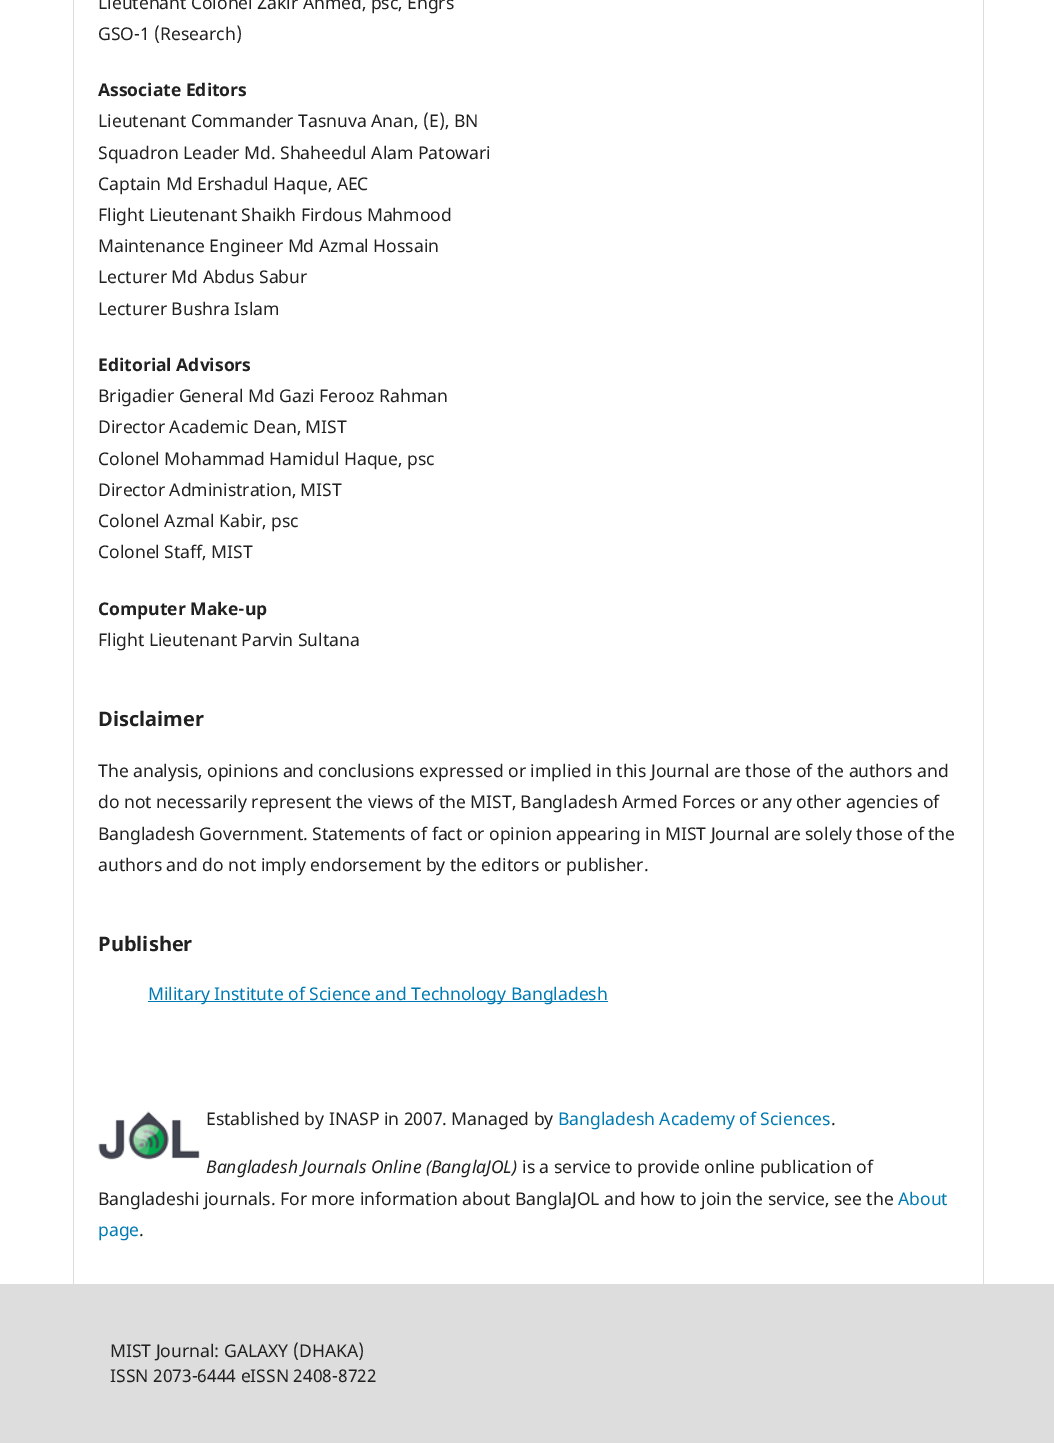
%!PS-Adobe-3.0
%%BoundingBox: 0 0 1054 1443
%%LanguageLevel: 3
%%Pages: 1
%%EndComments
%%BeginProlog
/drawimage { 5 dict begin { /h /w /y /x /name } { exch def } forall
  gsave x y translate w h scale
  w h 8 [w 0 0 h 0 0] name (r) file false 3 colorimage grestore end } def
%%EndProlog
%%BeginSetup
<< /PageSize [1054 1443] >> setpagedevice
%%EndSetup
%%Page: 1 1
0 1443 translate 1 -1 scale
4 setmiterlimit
1 setgray
0 0 1054 1443 rectfill
0.867 setgray
73 0 1 1284 rectfill
0 0.478 0.698 setrgbcolor
148 1001 460 1 rectfill
0.867 setgray
983 0 1 1284 rectfill
(images/1.raw) 98 1111 102 49 drawimage
0 1284 1054 159 rectfill
/NotoSans-Regular [17.5 0 0 -17.5 0 0] selectfont
0.129 setgray
98 9 moveto (Lieutenant Colonel Zakir Ahmed, psc, Engrs) show
98 40 moveto (GSO-1 \(Research\)) show
/NotoSans-Bold [17.5 0 0 -17.5 0 0] selectfont
98 96 moveto (Associate Editors) show
/NotoSans-Regular [17.5 0 0 -17.5 0 0] selectfont
98 127 moveto (Lieutenant Commander Tasnuva Anan, \(E\), BN) show
98 159 moveto (Squadron Leader Md. Shaheedul Alam Patowari) show
98 190 moveto (Captain Md Ershadul Haque, AEC) show
98 221 moveto (Flight Lieutenant Shaikh Firdous Mahmood) show
98 252 moveto (Maintenance Engineer Md Azmal Hossain) show
98 283 moveto (Lecturer Md Abdus Sabur) show
98 315 moveto (Lecturer Bushra Islam) show
/NotoSans-Bold [17.5 0 0 -17.5 0 0] selectfont
98 371 moveto (Editorial Advisors) show
/NotoSans-Regular [17.5 0 0 -17.5 0 0] selectfont
98 402 moveto (Brigadier General Md Gazi Ferooz Rahman) show
98 433 moveto (Director Academic Dean, MIST) show
98 465 moveto (Colonel Mohammad Hamidul Haque, psc) show
98 496 moveto (Director Administration, MIST) show
98 527 moveto (Colonel Azmal Kabir, psc) show
98 558 moveto (Colonel Staff, MIST) show
/NotoSans-Bold [17.5 0 0 -17.5 0 0] selectfont
98 615 moveto (Computer Make-up) show
/NotoSans-Regular [17.5 0 0 -17.5 0 0] selectfont
98 646 moveto (Flight Lieutenant Parvin Sultana) show
/NotoSans-Bold [20 0 0 -20 0 0] selectfont
98 726 moveto (Disclaimer) show
/NotoSans-Regular [17.5 0 0 -17.5 0 0] selectfont
98 777 moveto (The analysis, opinions and conclusions expressed or implied in this Journal are those of the authors and) show
98 808 moveto (do not necessarily represent the views of the MIST, Bangladesh Armed Forces or any other agencies of) show
98 840 moveto (Bangladesh Government. Statements of fact or opinion appearing in MIST Journal are solely those of the) show
98 871 moveto (authors and do not imply endorsement by the editors or publisher.) show
/NotoSans-Bold [20 0 0 -20 0 0] selectfont
98 951 moveto (Publisher) show
/NotoSans-Regular [17.5 0 0 -17.5 0 0] selectfont
0 0.478 0.698 setrgbcolor
148 1000 moveto (Military Institute of Science and Technology Bangladesh) show
0.129 setgray
206 1125 moveto (Established by INASP in 2007. Managed by) show
0 0.478 0.698 setrgbcolor
558 1125 moveto (Bangladesh Academy of Sciences) show
0.129 setgray
831 1125 moveto (.) show
/NotoSans-Italic [17.5 0 0 -17.5 0 0] selectfont
206 1173 moveto (Bangladesh Journals Online \(BanglaJOL\)) show
/NotoSans-Regular [17.5 0 0 -17.5 0 0] selectfont
522 1173 moveto (is a service to provide online publication of) show
98 1205 moveto (Bangladeshi journals. For more information about BanglaJOL and how to join the service, see the) show
0 0.478 0.698 setrgbcolor
898 1205 moveto (About) show
98 1236 moveto (page) show
0.129 setgray
139 1236 moveto (.) show
110 1357 moveto (MIST Journal: GALAXY \(DHAKA\)) show
110 1382 moveto (ISSN 2073-6444 eISSN 2408-8722) show
showpage
%%EOF
